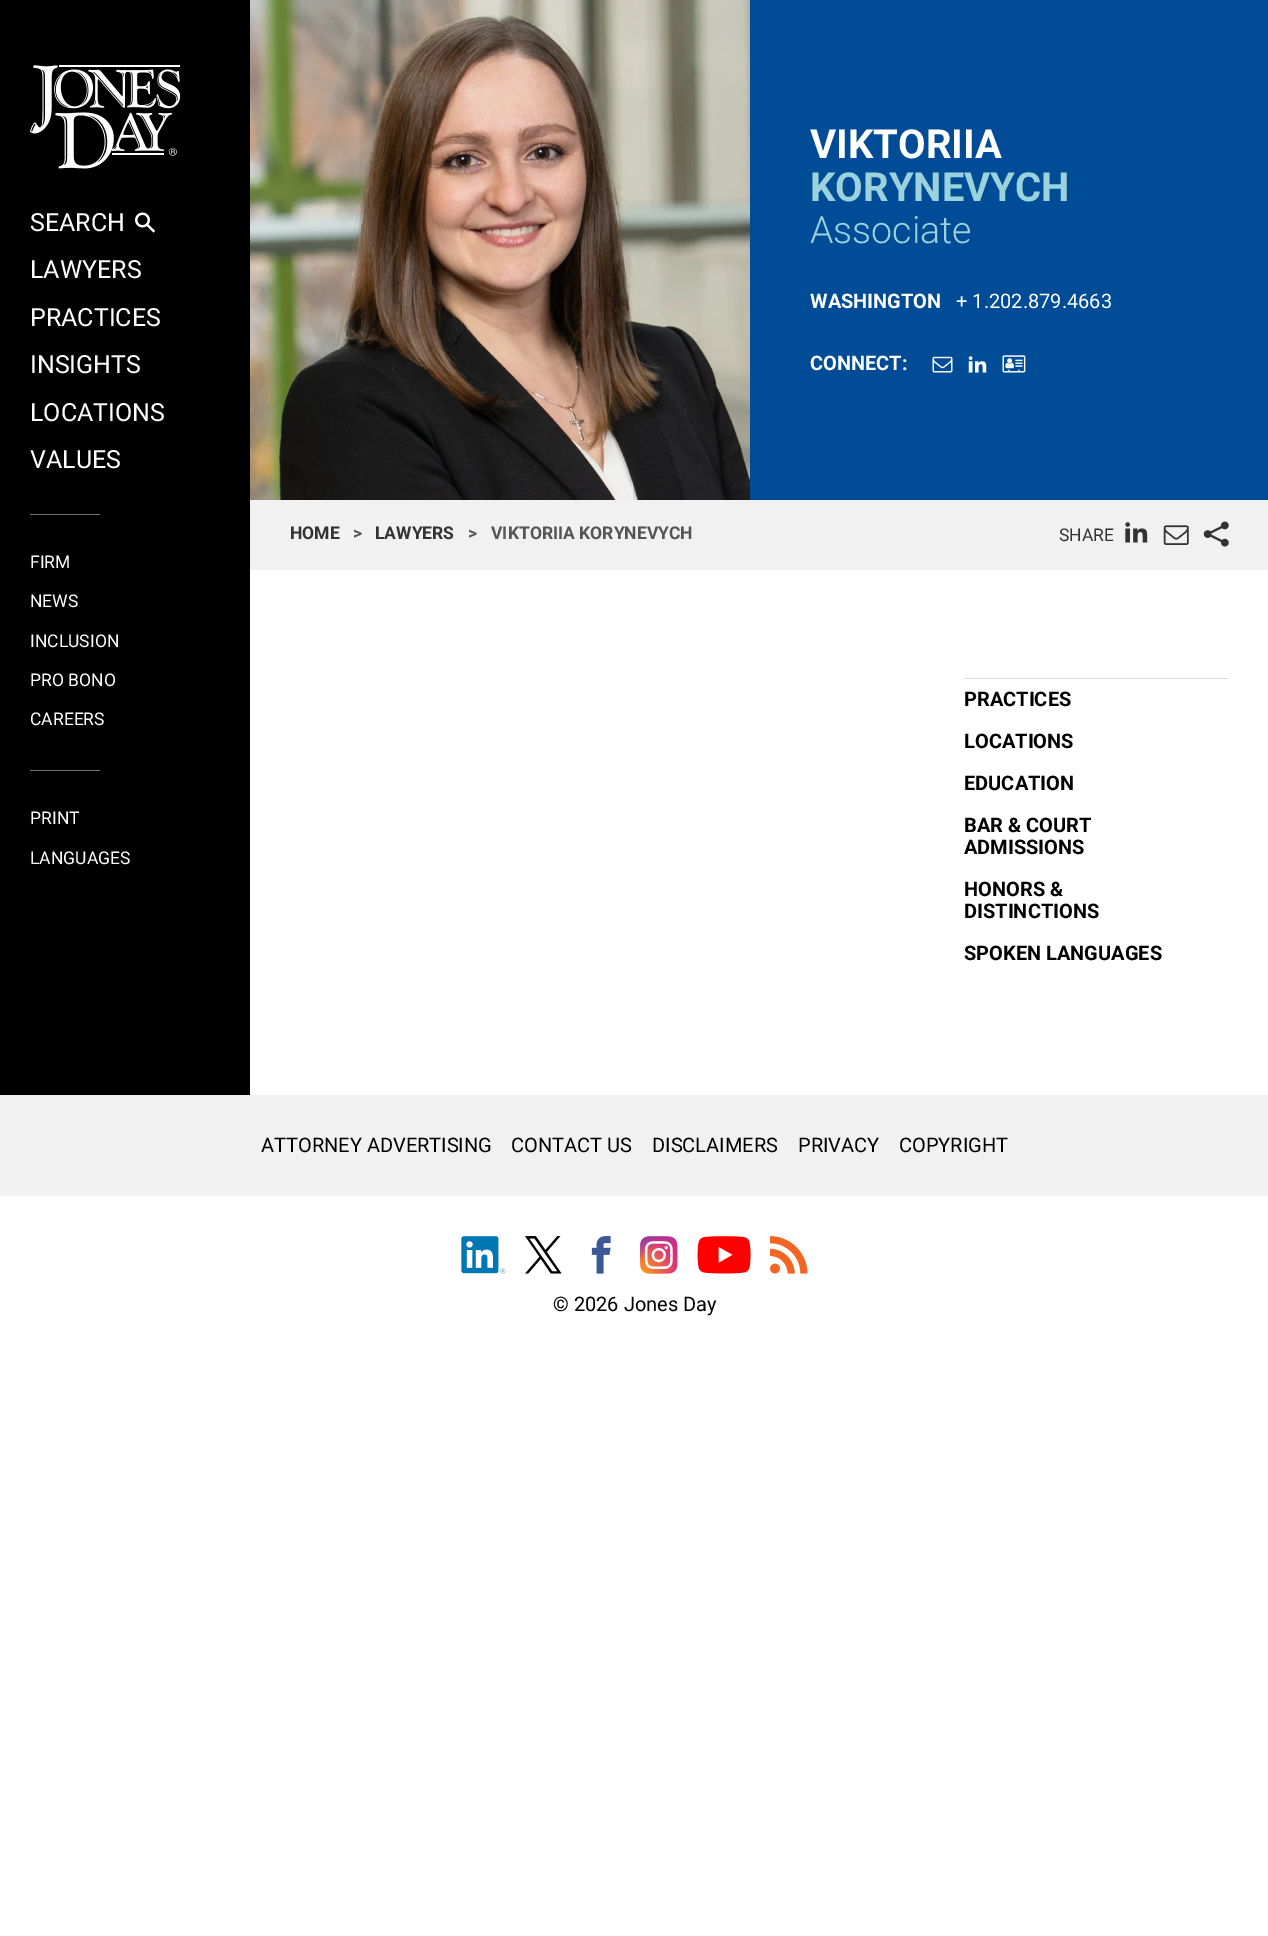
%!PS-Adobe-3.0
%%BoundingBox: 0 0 1268 1936
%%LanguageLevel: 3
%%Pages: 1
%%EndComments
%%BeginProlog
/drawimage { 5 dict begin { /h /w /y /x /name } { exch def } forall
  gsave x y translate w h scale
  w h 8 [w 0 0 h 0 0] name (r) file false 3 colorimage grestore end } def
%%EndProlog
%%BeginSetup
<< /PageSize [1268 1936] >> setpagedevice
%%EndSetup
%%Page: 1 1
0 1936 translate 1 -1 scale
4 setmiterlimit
1 setgray
0 0 1268 1936 rectfill
0 setgray
0 0 250 1095 rectfill
(images/1.raw) 30 65 150 104 drawimage
(images/2.raw) 135 212 20 21 drawimage
0.435 setgray
30 514 70 1 rectfill
30 770 70 1 rectfill
0 0.298 0.592 setrgbcolor
750 0 518 500 rectfill
(images/3.raw) 250 0 500 500 drawimage
(images/4.raw) 932 356 21 17 drawimage
(images/5.raw) 968 356 19 17 drawimage
(images/6.raw) 1002 355 24 18 drawimage
0.945 setgray
250 500 1018 70 rectfill
(images/7.raw) 1125 522 23 21 drawimage
(images/8.raw) 1163 525 26 20 drawimage
(images/9.raw) 1203 521 26 26 drawimage
0.867 setgray
964 678 265 1 rectfill
0.945 setgray
0 1095 1268 101 rectfill
(images/10.raw) 461 1236 45 38 drawimage
(images/11.raw) 525 1236 37 38 drawimage
(images/12.raw) 591 1236 20 38 drawimage
(images/13.raw) 640 1236 38 38 drawimage
(images/14.raw) 697 1236 54 38 drawimage
(images/15.raw) 770 1236 38 38 drawimage
/Roboto-Regular [25 0 0 -25 0 0] selectfont
1 setgray
30 231 moveto (SEARCH) show
30 278 moveto (LAWYERS) show
30 326 moveto (PRACTICES) show
30 373 moveto (INSIGHTS) show
30 421 moveto (LOCATIONS) show
30 468 moveto (VALUES) show
/Roboto-Regular [17.5 0 0 -17.5 0 0] selectfont
30 568 moveto (FIRM) show
30 607 moveto (NEWS) show
30 647 moveto (INCLUSION) show
30 686 moveto (PRO BONO) show
30 725 moveto (CAREERS) show
30 824 moveto (PRINT) show
30 864 moveto (LANGUAGES) show
/Roboto-Bold [40 0 0 -40 0 0] selectfont
810 158 moveto (VIKTORIIA) show
0.608 0.827 0.867 setrgbcolor
810 201 moveto (KORYNEVYCH) show
/Roboto-Light [37.5 0 0 -37.5 0 0] selectfont
810 243 moveto (Associate) show
/Roboto-Bold [20 0 0 -20 0 0] selectfont
1 setgray
810 308 moveto (WASHINGTON) show
/Roboto-Regular [20 0 0 -20 0 0] selectfont
956 308 moveto (+ 1.202.879.4663) show
/Roboto-Bold [20 0 0 -20 0 0] selectfont
810 370 moveto (CONNECT:) show
/Roboto-Bold [17.5 0 0 -17.5 0 0] selectfont
0.2 setgray
290 539 moveto (HOME) show
0.333 setgray
353 539 moveto (>) show
0.2 setgray
375 539 moveto (LAWYERS) show
0.333 setgray
468 539 moveto (>) show
491 539 moveto (VIKTORIIA KORYNEVYCH) show
/Roboto-Regular [17.5 0 0 -17.5 0 0] selectfont
0.2 setgray
1059 541 moveto (SHARE) show
/Roboto-Bold [20 0 0 -20 0 0] selectfont
0 setgray
964 706 moveto (PRACTICES) show
964 748 moveto (LOCATIONS) show
964 790 moveto (EDUCATION) show
964 832 moveto (BAR & COURT) show
964 854 moveto (ADMISSIONS) show
964 896 moveto (HONORS &) show
964 918 moveto (DISTINCTIONS) show
964 960 moveto (SPOKEN LANGUAGES) show
/Roboto-Regular [20 0 0 -20 0 0] selectfont
261 1152 moveto (ATTORNEY ADVERTISING) show
511 1152 moveto (CONTACT US) show
652 1152 moveto (DISCLAIMERS) show
798 1152 moveto (PRIVACY) show
899 1152 moveto (COPYRIGHT) show
553 1311 moveto (© 2026 Jones Day) show
showpage
%%EOF
